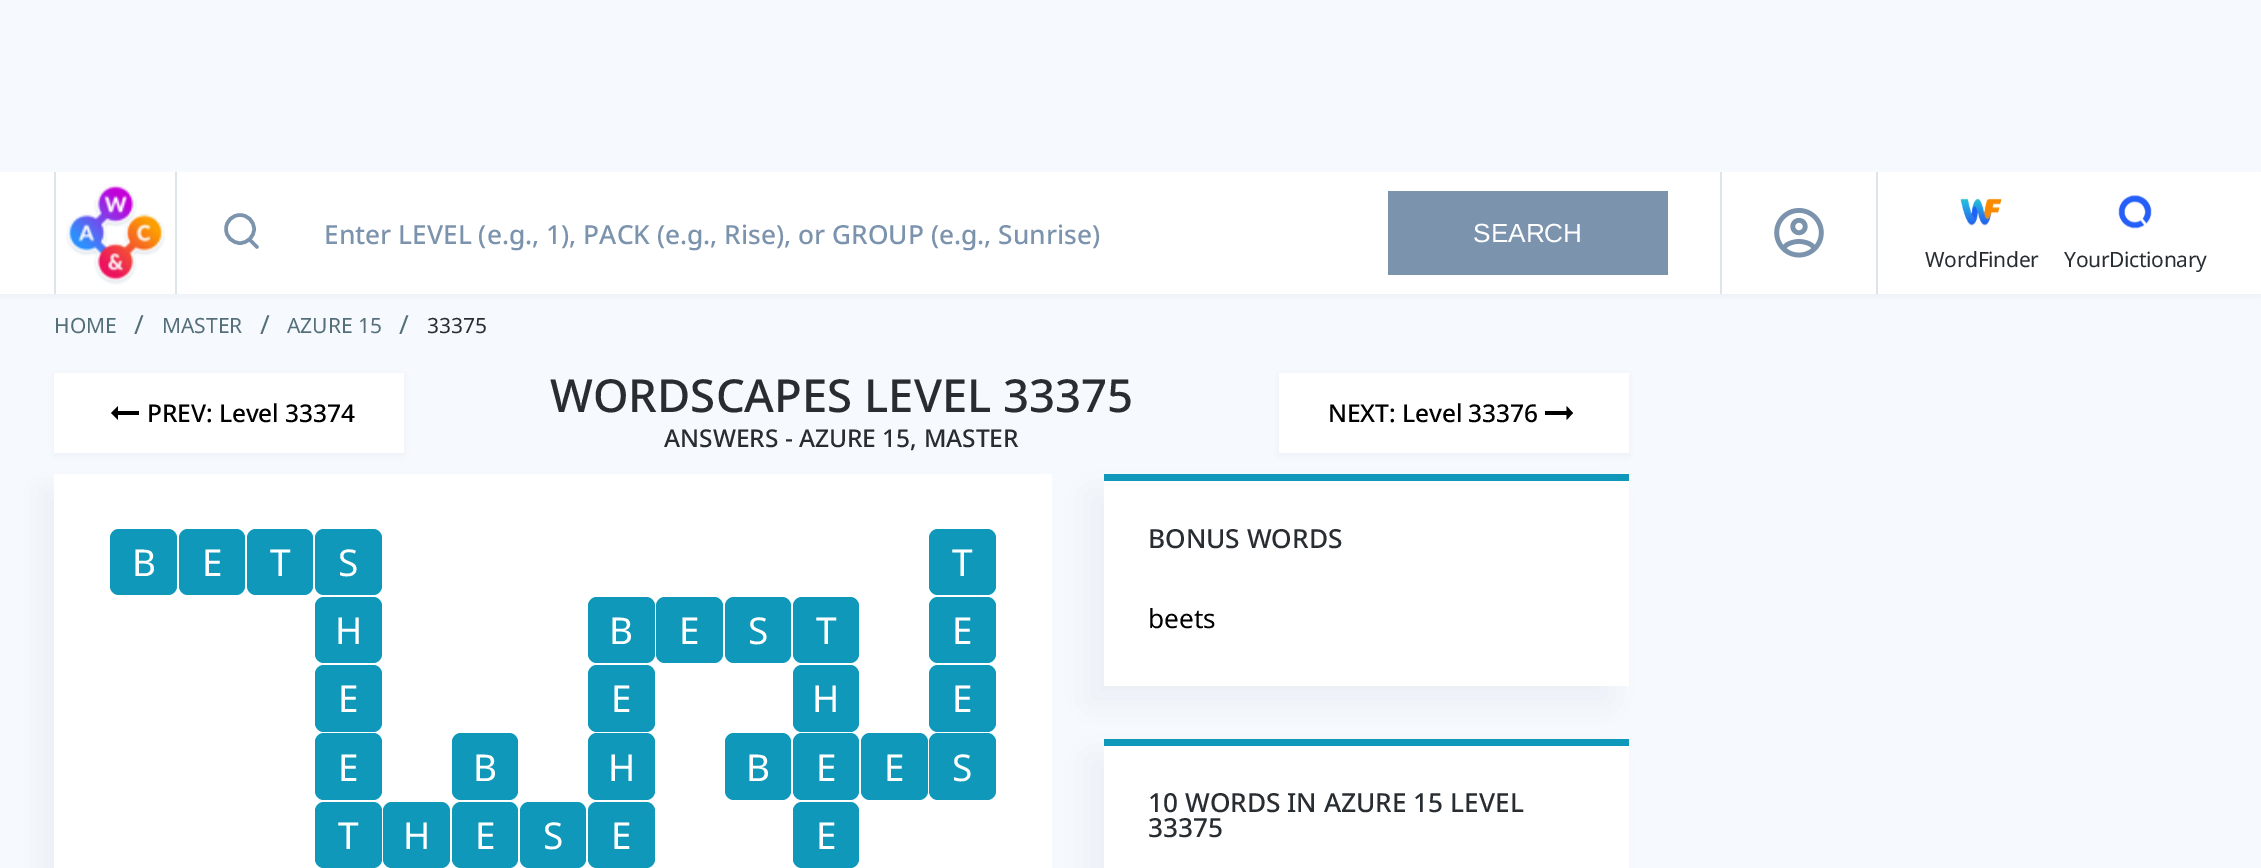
%!PS-Adobe-3.0
%%BoundingBox: 0 0 2261 868
%%LanguageLevel: 3
%%Pages: 1
%%EndComments
%%BeginProlog
/setalpha { dup .setfillconstantalpha .setstrokeconstantalpha } def
/rrect { 5 dict begin { /r /h /w /y /x } { exch def } forall
  x r add y moveto x w add y 2 copy h add r arct x w add y h add x 1 index r arct
  x y h add x y r arct x y 2 copy exch w add exch r arct closepath end } def
/softshadow { 12 dict begin { /a /b /q /h /w /y /x } { exch def } forall gsave /was 0 def
  9 -2 -9 { dup b mul 4 div /e exch def 1 sub .425 mul 2.718 exch exp 1 add a .99 .min exch div /now exch def
    1 1 now sub 1 was sub div sub setalpha /was now def
    w h .min e 2 mul add 0 gt { x e sub y e sub w e 2 mul add h e 2 mul add
      q e add b .6 mul add w h .min 2 div e add .min 0 .max rrect fill } if } for grestore end } def
/drawimage { 5 dict begin { /h /w /y /x /name } { exch def } forall
  gsave x y translate w h scale
  w h 8 [w 0 0 h 0 0] name (r) file false 3 colorimage grestore end } def
%%EndProlog
%%BeginSetup
<< /PageSize [2261 868] /PageUsesTransparency true >> setpagedevice
%%EndSetup
%%Page: 1 1
0 .pushpdf14devicefilter
0 868 translate 1 -1 scale
4 setmiterlimit
0.965 0.976 0.992 setrgbcolor
0 0 2261 868 rectfill
0.486 0.576 0.678 setrgbcolor
0 173 2261 123 0 4.5 0.1 softshadow
0.965 0.976 0.992 setrgbcolor
1 169 2259 3 rectfill
1 setgray
0 172 2261 122 rectfill
0.871 0.898 0.914 setrgbcolor
175 172 2 122 rectfill
54 172 2 122 rectfill
(images/1.raw) 66 184 99 101 drawimage
0.486 0.576 0.678 setrgbcolor
3.5 setlinewidth
newpath 240 229 14 0 360 arc closepath stroke
1 setlinecap
1 setlinejoin
newpath 257 247 moveto 250 240 lineto stroke
1388 191 280 84 rectfill
0.871 0.898 0.914 setrgbcolor
1720 172 2 122 rectfill
(images/2.raw) 1774 208 50 50 drawimage
1876 172 2 122 rectfill
(images/3.raw) 1960 198 42 28 drawimage
(images/4.raw) 2118 195 34 34 drawimage
0.486 0.576 0.678 setrgbcolor
54 375 350 80 0 5 0.1 softshadow
1 setgray
54 373 350 80 rectfill
0 setgray
newpath 118 415 moveto 139 415 lineto 139 411 lineto 118 411 lineto 118 406 lineto 111 413 lineto 118 420 lineto closepath fill
0.486 0.576 0.678 setrgbcolor
1279 375 350 80 0 5 0.1 softshadow
1 setgray
1279 373 350 80 rectfill
0 setgray
newpath 1566.5 411 moveto 1545 411 lineto 1545 415 lineto 1566.5 415 lineto 1566.5 420 lineto 1573 413 lineto 1566.5 406 lineto closepath fill
0.486 0.576 0.678 setrgbcolor
40 488 998 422 0 14 0.1 softshadow
1 setgray
54 474 998 394 rectfill
0.059 0.596 0.725 setrgbcolor
110 529 67 66 9 rrect fill
179 529 66 66 9 rrect fill
247 529 66 66 9 rrect fill
315 529 67 66 9 rrect fill
929 529 67 66 9 rrect fill
315 597 67 66 9 rrect fill
588 597 67 66 9 rrect fill
656 597 67 66 9 rrect fill
725 597 66 66 9 rrect fill
793 597 66 66 9 rrect fill
929 597 67 66 9 rrect fill
315 665 67 67 9 rrect fill
588 665 67 67 9 rrect fill
793 665 66 67 9 rrect fill
929 665 67 67 9 rrect fill
315 733 67 67 9 rrect fill
452 733 66 67 9 rrect fill
588 733 67 67 9 rrect fill
725 733 66 67 9 rrect fill
793 733 66 67 9 rrect fill
861 733 67 67 9 rrect fill
929 733 67 67 9 rrect fill
315 802 67 66 9 rrect fill
383 802 67 66 9 rrect fill
452 802 66 66 9 rrect fill
520 802 66 66 9 rrect fill
588 802 67 66 9 rrect fill
793 802 66 66 9 rrect fill
0.486 0.576 0.678 setrgbcolor
1087 492 525 212 0 17.5 0.1 softshadow
1 setgray
1104 481 525 205 rectfill
0.059 0.596 0.725 setrgbcolor
1104 474 525 7 rectfill
0.486 0.576 0.678 setrgbcolor
1087 756 525 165 0 17.5 0.1 softshadow
1 setgray
1104 746 525 122 rectfill
0.059 0.596 0.725 setrgbcolor
1104 739 525 7 rectfill
/NotoSans-Medium [26.25 0 0 -26.25 0 0] selectfont
0.486 0.576 0.678 setrgbcolor
324 244 moveto (Enter LEVEL \(e.g., 1\), PACK \(e.g., Rise\), or GROUP \(e.g., Sunrise\)) show
/LiberationSans-Regular [26.25 0 0 -26.25 0 0] selectfont
1 setgray
1473 242 moveto (SEARCH) show
/NotoSans-Regular [21 0 0 -21 0 0] selectfont
0.157 0.176 0.196 setrgbcolor
1925 267 moveto -0.3 0 (WordFinder) ashow
2064 267 moveto -0.3 0 (YourDictionary) ashow
0.329 0.431 0.478 setrgbcolor
54 333 moveto (HOME) show
/NotoSans-Regular [26.25 0 0 -26.25 0 0] selectfont
134 334 moveto (/) show
/NotoSans-Regular [21 0 0 -21 0 0] selectfont
162 333 moveto (MASTER) show
/NotoSans-Regular [26.25 0 0 -26.25 0 0] selectfont
260 334 moveto (/) show
/NotoSans-Regular [21 0 0 -21 0 0] selectfont
287 333 moveto (AZURE 15) show
/NotoSans-Regular [26.25 0 0 -26.25 0 0] selectfont
399 334 moveto (/) show
/NotoSans-Regular [21 0 0 -21 0 0] selectfont
0.157 0.176 0.196 setrgbcolor
427 333 moveto (33375) show
/NotoSans-Medium [24.5 0 0 -24.5 0 0] selectfont
0 setgray
147 422 moveto -0.1 0 (PREV: Level 33374) ashow
/NotoSans-Medium [45.5 0 0 -45.5 0 0] selectfont
0.157 0.176 0.196 setrgbcolor
550 412 moveto (WORDSCAPES LEVEL 33375) show
/NotoSans-Medium [24.5 0 0 -24.5 0 0] selectfont
664 447 moveto (ANSWERS - AZURE 15, MASTER) show
0 setgray
1328 422 moveto -0.1 0 (NEXT: Level 33376) ashow
/NotoSans-Regular [37 0 0 -37 0 0] selectfont
1 setgray
132 576 moveto (B) show
202 576 moveto (E) show
270 576 moveto (T) show
338 576 moveto (S) show
952 576 moveto (T) show
335 644 moveto (H) show
609 644 moveto (B) show
679 644 moveto (E) show
748 644 moveto (S) show
816 644 moveto (T) show
952 644 moveto (E) show
338 712 moveto (E) show
611 712 moveto (E) show
812 712 moveto (H) show
952 712 moveto (E) show
338 781 moveto (E) show
473 781 moveto (B) show
608 781 moveto (H) show
746 781 moveto (B) show
816 781 moveto (E) show
884 781 moveto (E) show
952 781 moveto (S) show
338 849 moveto (T) show
403 849 moveto (H) show
475 849 moveto (E) show
543 849 moveto (S) show
611 849 moveto (E) show
816 849 moveto (E) show
/NotoSans-Medium [26.25 0 0 -26.25 0 0] selectfont
0.157 0.176 0.196 setrgbcolor
1148 548 moveto (BONUS WORDS) show
/NotoSans-Regular [26.25 0 0 -26.25 0 0] selectfont
0 setgray
1148 628 moveto (beets) show
/NotoSans-Medium [26.25 0 0 -26.25 0 0] selectfont
0.157 0.176 0.196 setrgbcolor
1148 812 moveto (10 WORDS IN AZURE 15 LEVEL) show
1148 837 moveto (33375) show
.poppdf14devicefilter showpage
%%EOF
